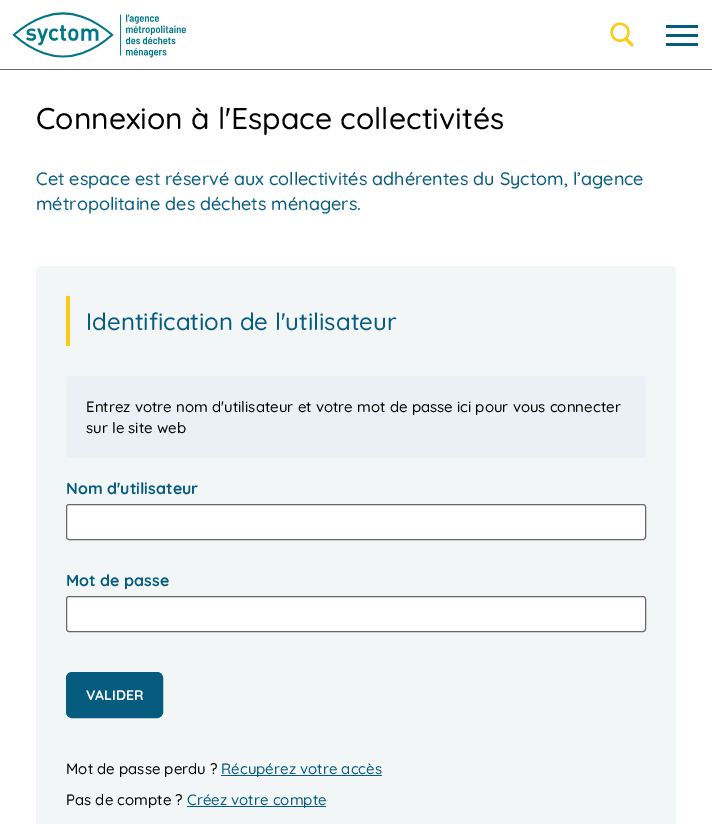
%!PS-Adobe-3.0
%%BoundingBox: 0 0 712 824
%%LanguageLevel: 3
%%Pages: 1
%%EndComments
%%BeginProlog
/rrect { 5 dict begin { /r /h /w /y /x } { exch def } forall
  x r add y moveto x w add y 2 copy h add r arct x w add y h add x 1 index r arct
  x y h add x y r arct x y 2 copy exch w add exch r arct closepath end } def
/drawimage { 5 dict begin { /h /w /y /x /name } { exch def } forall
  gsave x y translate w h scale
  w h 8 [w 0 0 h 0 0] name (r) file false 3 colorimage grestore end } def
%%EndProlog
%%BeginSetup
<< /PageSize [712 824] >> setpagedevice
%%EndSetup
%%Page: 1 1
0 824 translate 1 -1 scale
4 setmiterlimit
1 setgray
0 0 712 824 rectfill
0.404 setgray
0 69 712 1 rectfill
(images/1.raw) 12 12 174 46 drawimage
(images/2.raw) 610 22 24 25 drawimage
0.024 0.361 0.498 setrgbcolor
666 34 32 3 rectfill
666 25 32 3 rectfill
666 43 32 3 rectfill
0.953 0.965 0.969 setrgbcolor
36 266 640 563 5 rrect fill
0.992 0.792 0.09 setrgbcolor
66 296 4 50 rectfill
0.918 0.941 0.965 setrgbcolor
66 376 580 82 4 rrect fill
1 setgray
66.5 504.5 579 35 2.5 rrect gsave fill grestore
0.404 setgray
stroke
1 setgray
66.5 596.5 579 35 2.5 rrect gsave fill grestore
0.404 setgray
stroke
0.024 0.361 0.498 setrgbcolor
67 673 95 44 5 rrect gsave fill grestore
2 setlinewidth
stroke
221 775 161 1 rectfill
187 806 139 1 rectfill
/Quicksand-Medium [30 0 0 -30 0 0] selectfont
0 setgray
36 129 moveto (Connexion à l'Espace collectivités) show
/Quicksand-Medium [18 0 0 -18 0 0] selectfont
0.024 0.361 0.498 setrgbcolor
36 185 moveto (Cet espace est réservé aux collectivités adhérentes du Syctom, l’agence) show
36 210 moveto (métropolitaine des déchets ménagers.) show
/Quicksand-Medium [24 0 0 -24 0 0] selectfont
86 330 moveto (Identification de l'utilisateur) show
/Quicksand-Medium [15 0 0 -15 0 0] selectfont
0 setgray
86 412 moveto (Entrez votre nom d'utilisateur et votre mot de passe ici pour vous connecter) show
86 433 moveto (sur le site web) show
/Quicksand-Bold [16 0 0 -16 0 0] selectfont
0.024 0.361 0.498 setrgbcolor
66 494 moveto (Nom d'utilisateur) show
66 586 moveto (Mot de passe) show
/Quicksand-Bold [14 0 0 -14 0 0] selectfont
1 setgray
86 700 moveto (VALIDER) show
/Quicksand-Medium [15 0 0 -15 0 0] selectfont
0 setgray
66 774 moveto (Mot de passe perdu ?) show
0.024 0.361 0.498 setrgbcolor
221 774 moveto (Récupérez votre accès) show
0 setgray
66 805 moveto (Pas de compte ?) show
0.024 0.361 0.498 setrgbcolor
187 805 moveto (Créez votre compte) show
showpage
%%EOF
